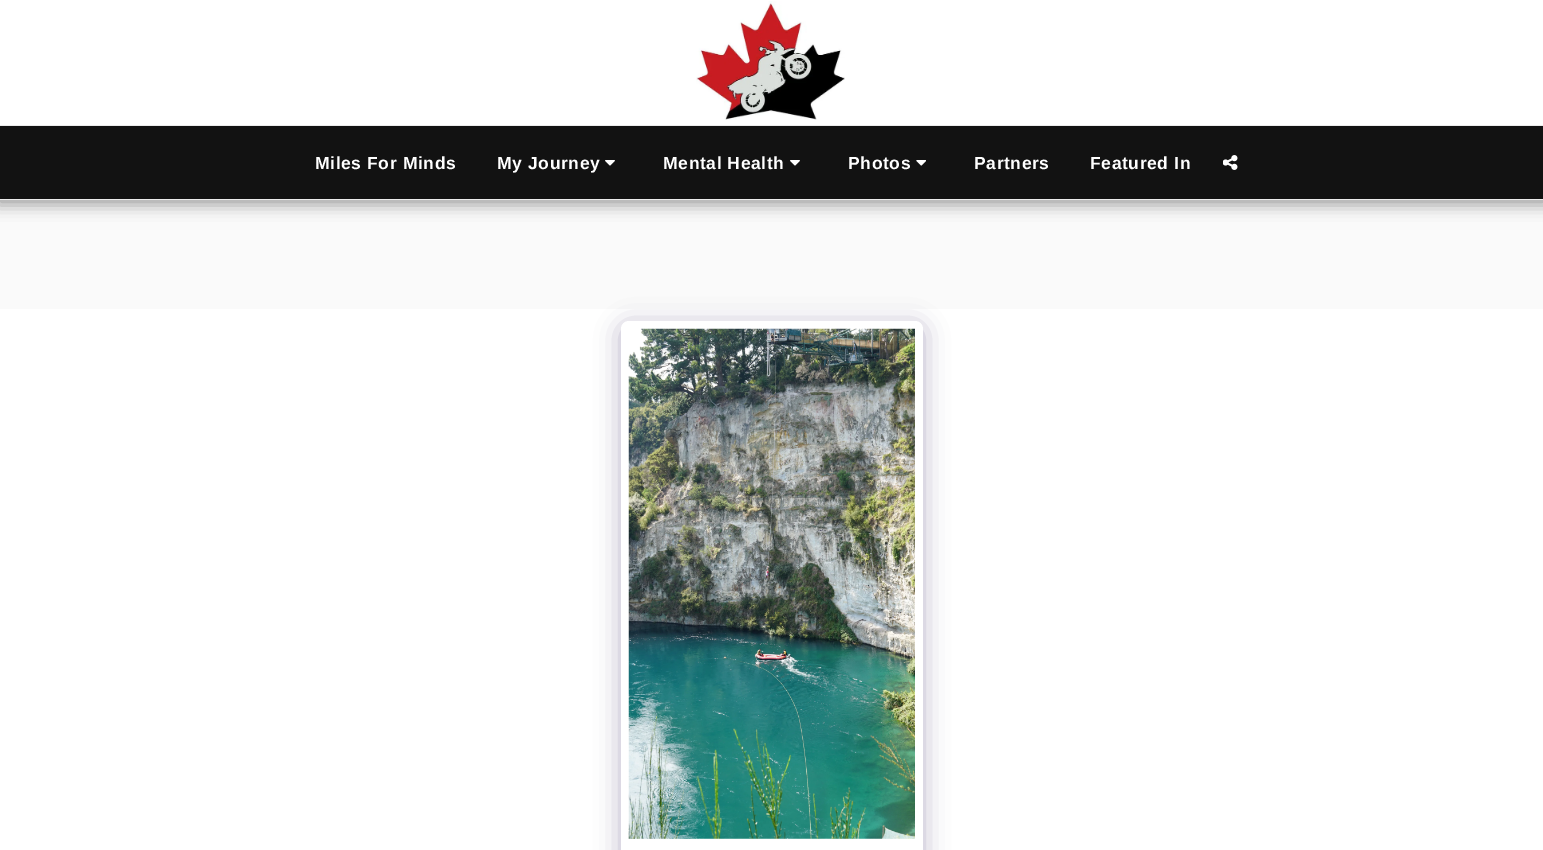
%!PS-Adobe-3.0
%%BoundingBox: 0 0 1543 850
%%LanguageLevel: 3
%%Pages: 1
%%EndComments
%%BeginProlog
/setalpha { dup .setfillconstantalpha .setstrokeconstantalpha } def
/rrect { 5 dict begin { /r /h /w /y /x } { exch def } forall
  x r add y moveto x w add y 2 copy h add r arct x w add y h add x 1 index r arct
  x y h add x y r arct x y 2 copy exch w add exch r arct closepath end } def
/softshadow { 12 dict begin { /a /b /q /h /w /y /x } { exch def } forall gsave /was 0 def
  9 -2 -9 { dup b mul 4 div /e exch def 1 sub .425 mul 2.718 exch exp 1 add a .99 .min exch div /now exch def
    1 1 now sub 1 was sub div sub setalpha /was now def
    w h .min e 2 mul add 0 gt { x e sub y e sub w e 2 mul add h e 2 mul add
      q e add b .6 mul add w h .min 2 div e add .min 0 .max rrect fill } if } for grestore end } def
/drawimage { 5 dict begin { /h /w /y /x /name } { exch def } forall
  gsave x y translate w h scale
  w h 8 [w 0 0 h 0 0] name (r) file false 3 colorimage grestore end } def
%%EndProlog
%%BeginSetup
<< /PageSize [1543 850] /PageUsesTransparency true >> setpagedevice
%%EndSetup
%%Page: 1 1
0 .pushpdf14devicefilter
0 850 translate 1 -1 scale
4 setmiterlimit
1 setgray
0 0 1543 850 rectfill
0.98 setgray
0 200 1543 109 rectfill
0 setgray
-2 0 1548 205 0 7.5 0.35 softshadow
0.922 setgray
0 199 1543 1 rectfill
1 setgray
0 0 1543 125 rectfill
(images/1.raw) 696 1 149 119 drawimage
0.071 setgray
0 126 1543 73 rectfill
0.922 setgray
0 125 1543 1 rectfill
(images/2.raw) 605 160 10 6 drawimage
(images/2.raw) 790 160 10 6 drawimage
(images/3.raw) 916 160 10 6 drawimage
(images/4.raw) 1223 155 15 15 drawimage
0.302 0.247 0.478 setrgbcolor
621 325 302 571 8 12.5 0.4 softshadow
1 setgray
621 321 302 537 8 rrect fill
(images/5.raw) 628 328 287 511 drawimage
/LiberationSans-Bold [17.5 0 0 -17.5 0 0] selectfont
315 169 moveto 0.6 0 (Miles For Minds) ashow
497 169 moveto 0.6 0 (My Journey) ashow
663 169 moveto 0.6 0 (Mental Health) ashow
848 169 moveto 0.6 0 (Photos) ashow
974 169 moveto 0.6 0 (Partners) ashow
1090 169 moveto 0.6 0 (Featured In) ashow
.poppdf14devicefilter showpage
%%EOF
